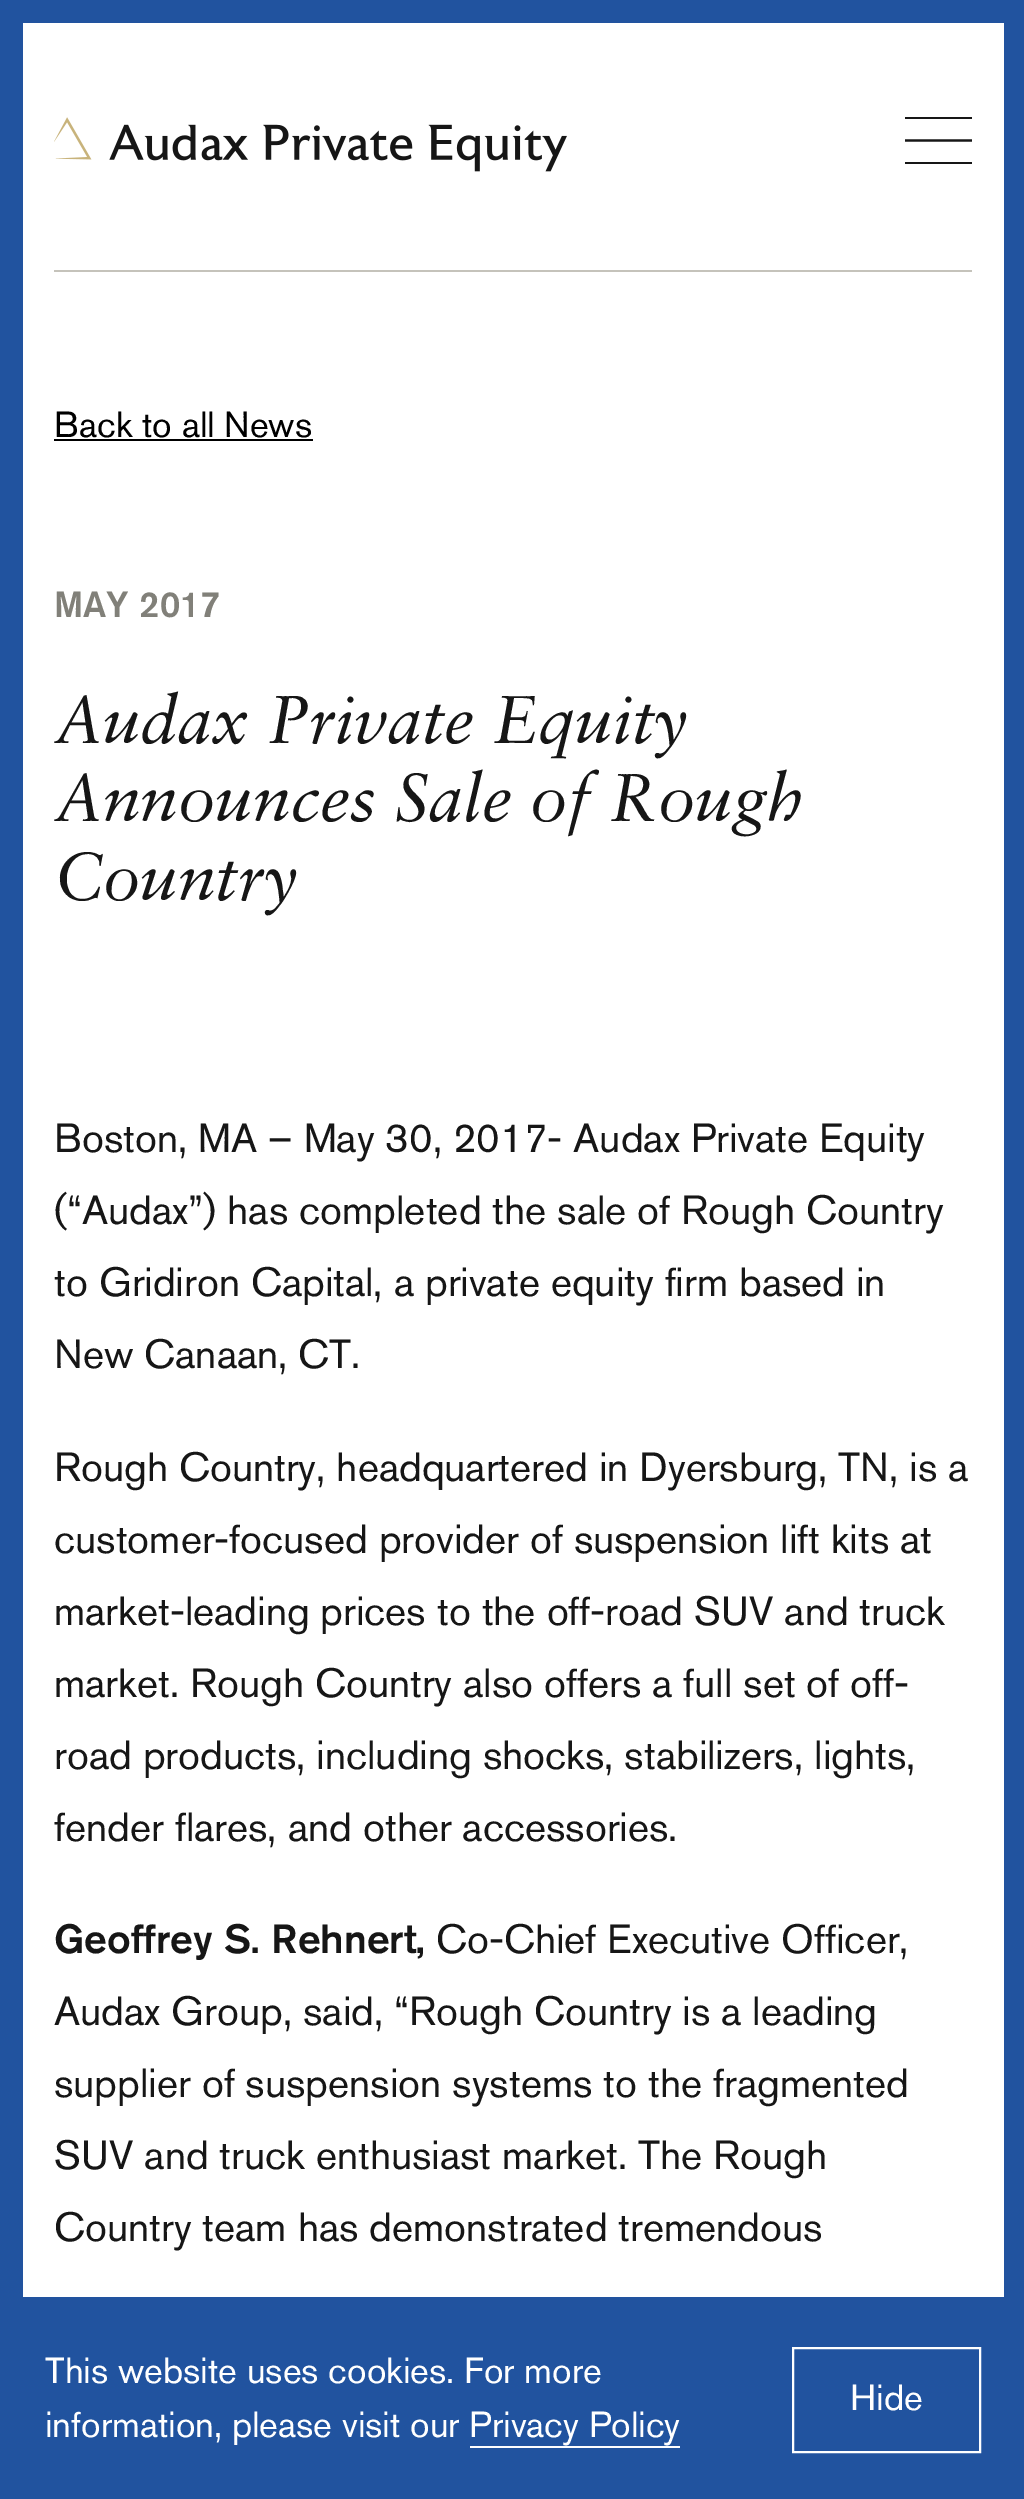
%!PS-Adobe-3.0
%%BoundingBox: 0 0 1024 2499
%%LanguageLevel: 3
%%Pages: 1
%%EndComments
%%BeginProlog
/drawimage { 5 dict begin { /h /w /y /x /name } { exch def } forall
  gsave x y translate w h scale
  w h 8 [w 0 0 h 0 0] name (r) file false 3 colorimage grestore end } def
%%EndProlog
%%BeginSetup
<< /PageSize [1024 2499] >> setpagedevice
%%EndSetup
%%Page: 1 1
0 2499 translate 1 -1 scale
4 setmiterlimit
1 setgray
0 0 1024 2499 rectfill
0.129 0.325 0.624 setrgbcolor
23 0 981 23 rectfill
0 0 23 2297 rectfill
(images/1.raw) 54 117 513 55 drawimage
0.086 setgray
905 117 67 2 rectfill
gsave
905 117 67 47 rectclip
2.2 setlinewidth
newpath 904.5 140.5 moveto 972 140.5 lineto stroke
grestore
905 162 67 2 rectfill
0.129 0.325 0.624 setrgbcolor
1004 0 20 2297 rectfill
0.773 0.765 0.733 setrgbcolor
54 270 918 2 rectfill
0 setgray
54 439 259 2 rectfill
0.129 0.325 0.624 setrgbcolor
0 2297 1024 202 rectfill
1 setgray
470 2446 210 2 rectfill
2 setlinewidth
793 2348 187 104 rectstroke
/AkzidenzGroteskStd-Regular [36 0 0 -36 0 0] selectfont
0 setgray
54 437 moveto (Back to all News) show
/AkzidenzGroteskStd-Medium [36 0 0 -36 0 0] selectfont
0.506 0.502 0.475 setrgbcolor
54 617 moveto (MAY 2017) show
/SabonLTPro-Italic [67.5 0 0 -67.5 0 0] selectfont
0.086 setgray
54 743 moveto (Audax Private Equity) show
54 821 moveto (Announces Sale of Rough) show
54 900 moveto (Country) show
/AkzidenzGroteskStd-Regular [40.5 0 0 -40.5 0 0] selectfont
54 1152 moveto (Boston, MA – May 30, 2017- Audax Private Equity) show
54 1224 moveto (\(“Audax”\) has completed the sale of Rough Country) show
54 1296 moveto (to Gridiron Capital, a private equity firm based in) show
54 1368 moveto (New Canaan, CT.) show
54 1481 moveto (Rough Country, headquartered in Dyersburg, TN, is a) show
54 1553 moveto (customer-focused provider of suspension lift kits at) show
54 1625 moveto (market-leading prices to the off-road SUV and truck) show
54 1697 moveto (market. Rough Country also offers a full set of off-) show
54 1769 moveto (road products, including shocks, stabilizers, lights,) show
54 1841 moveto (fender flares, and other accessories.) show
/AkzidenzGroteskStd-Medium [40.5 0 0 -40.5 0 0] selectfont
54 1953 moveto (Geoffrey S. Rehnert,) show
/AkzidenzGroteskStd-Regular [40.5 0 0 -40.5 0 0] selectfont
436 1953 moveto (Co-Chief Executive Officer,) show
54 2025 moveto (Audax Group, said, “Rough Country is a leading) show
54 2097 moveto (supplier of suspension systems to the fragmented) show
54 2169 moveto (SUV and truck enthusiast market. The Rough) show
54 2241 moveto (Country team has demonstrated tremendous) show
/AkzidenzGroteskStd-Regular [36 0 0 -36 0 0] selectfont
1 setgray
45 2383 moveto (This website uses cookies. For more) show
45 2437 moveto (information, please visit our Privacy Policy) show
850 2410 moveto (Hide) show
showpage
%%EOF
